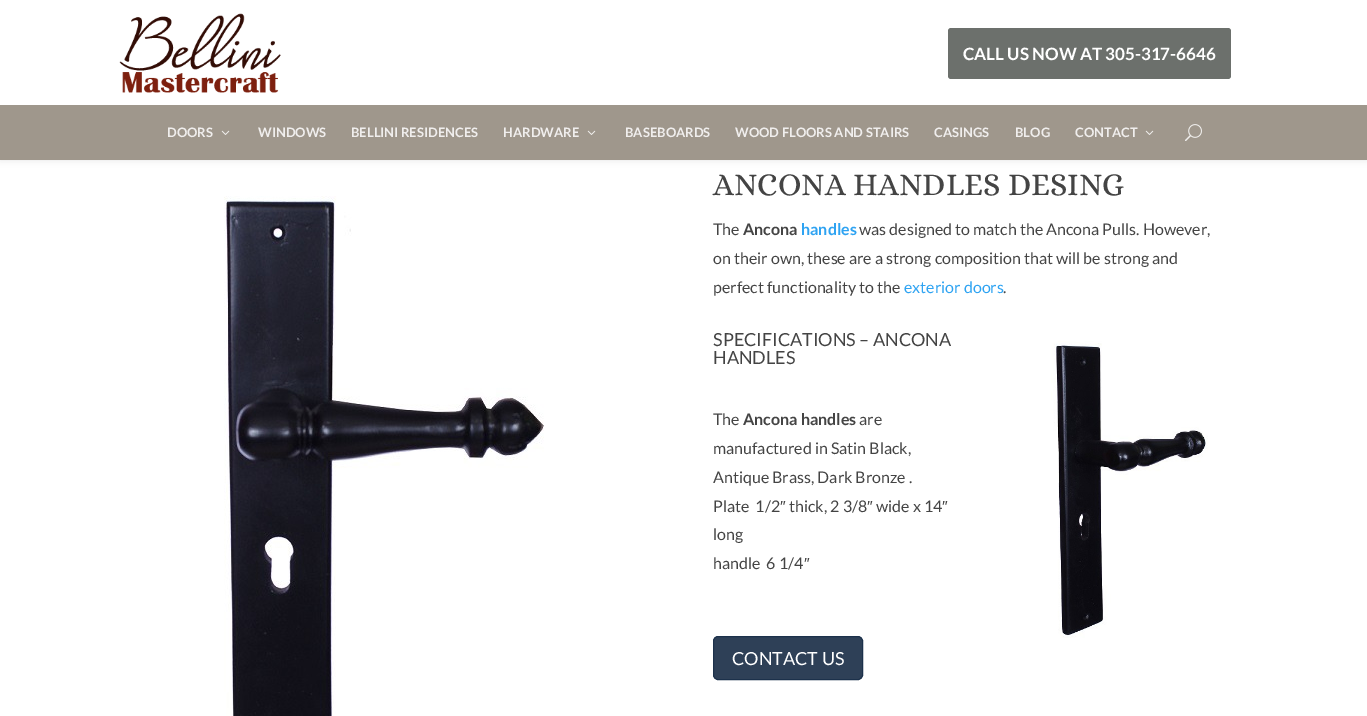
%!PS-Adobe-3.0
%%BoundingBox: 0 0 1367 716
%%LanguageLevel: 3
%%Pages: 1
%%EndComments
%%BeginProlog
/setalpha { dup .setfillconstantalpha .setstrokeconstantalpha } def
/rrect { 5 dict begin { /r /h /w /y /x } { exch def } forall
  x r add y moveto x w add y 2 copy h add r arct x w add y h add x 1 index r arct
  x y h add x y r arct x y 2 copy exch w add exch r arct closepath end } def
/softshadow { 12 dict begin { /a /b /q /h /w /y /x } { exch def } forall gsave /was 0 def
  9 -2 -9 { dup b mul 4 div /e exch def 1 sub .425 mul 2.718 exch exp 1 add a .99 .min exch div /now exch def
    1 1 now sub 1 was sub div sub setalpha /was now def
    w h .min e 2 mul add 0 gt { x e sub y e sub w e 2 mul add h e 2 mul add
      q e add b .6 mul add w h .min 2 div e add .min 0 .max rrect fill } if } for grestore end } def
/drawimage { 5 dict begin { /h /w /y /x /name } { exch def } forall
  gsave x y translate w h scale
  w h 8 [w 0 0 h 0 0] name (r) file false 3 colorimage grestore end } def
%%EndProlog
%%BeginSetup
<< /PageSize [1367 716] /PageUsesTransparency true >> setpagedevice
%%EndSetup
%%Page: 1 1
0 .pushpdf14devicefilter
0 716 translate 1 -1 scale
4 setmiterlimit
1 setgray
0 0 1367 716 rectfill
0 setgray
0 0 1367 160 0 3.5 0.1 softshadow
1 setgray
0 0 1367 105 rectfill
(images/1.raw) 119 13 162 80 drawimage
0.424 0.439 0.424 setrgbcolor
948 28 283 51 3 rrect fill
0.624 0.592 0.549 setrgbcolor
0 105 1367 55 rectfill
(images/2.raw) 221 130 9 5 drawimage
(images/2.raw) 587 130 9 5 drawimage
(images/2.raw) 1145 130 9 5 drawimage
(images/3.raw) 1185 124 17 17 drawimage
(images/4.raw) 224 196 320 520 drawimage
(images/5.raw) 1051 341 157 297 drawimage
0.18 0.251 0.341 setrgbcolor
713.5 636.5 149 43 4.5 rrect gsave fill grestore
0.11 0.192 0.294 setrgbcolor
stroke
/Lato-Bold [17 0 0 -17 0 0] selectfont
1 setgray
963 60 moveto (CALL US NOW AT 305-317-6646) show
/Lato-Bold [13 0 0 -13 0 0] selectfont
0.941 0.933 0.929 setrgbcolor
167 137 moveto (DOORS) show
258 137 moveto (WINDOWS) show
351 137 moveto (BELLINI RESIDENCES) show
503 137 moveto (HARDWARE) show
625 137 moveto (BASEBOARDS) show
735 137 moveto (WOOD FLOORS AND STAIRS) show
934 137 moveto (CASINGS) show
1015 137 moveto (BLOG) show
1075 137 moveto (CONTACT) show
/Alice-Regular [32 0 0 -32 0 0] selectfont
0.267 setgray
713 195 moveto (ANCONA HANDLES DESING) show
/Lato-Regular [16 0 0 -16 0 0] selectfont
713 235 moveto (The) show
/Lato-Bold [16 0 0 -16 0 0] selectfont
743 235 moveto (Ancona) show
0.18 0.639 0.949 setrgbcolor
801 235 moveto (handles) show
/Lato-Regular [16 0 0 -16 0 0] selectfont
0.267 setgray
859 235 moveto (was designed to match the Ancona Pulls. However,) show
713 264 moveto (on their own, these are a strong composition that will be strong and) show
713 293 moveto (perfect functionality to the) show
0.18 0.639 0.949 setrgbcolor
904 293 moveto (exterior doors) show
0.267 setgray
1003 293 moveto (.) show
/Lato-Regular [18 0 0 -18 0 0] selectfont
713 346 moveto (SPECIFICATIONS – ANCONA) show
713 364 moveto (HANDLES) show
/Lato-Regular [16 0 0 -16 0 0] selectfont
713 425 moveto (The) show
/Lato-Bold [16 0 0 -16 0 0] selectfont
743 425 moveto (Ancona handles) show
/Lato-Regular [16 0 0 -16 0 0] selectfont
859 425 moveto (are) show
713 454 moveto (manufactured in Satin Black,) show
713 483 moveto (Antique Brass, Dark Bronze .) show
713 512 moveto (Plate  1/2) show
/LiberationSans-Regular [16 0 0 -16 0 0] selectfont
780 512 moveto (″) show
/Lato-Regular [16 0 0 -16 0 0] selectfont
789 512 moveto (thick, 2 3/8) show
/LiberationSans-Regular [16 0 0 -16 0 0] selectfont
867 512 moveto (″) show
/Lato-Regular [16 0 0 -16 0 0] selectfont
876 512 moveto (wide x 14) show
/LiberationSans-Regular [16 0 0 -16 0 0] selectfont
942 512 moveto (″) show
/Lato-Regular [16 0 0 -16 0 0] selectfont
713 540 moveto (long) show
713 569 moveto (handle  6 1/4) show
/LiberationSans-Regular [16 0 0 -16 0 0] selectfont
804 569 moveto (″) show
/Lato-Regular [18 0 0 -18 0 0] selectfont
1 setgray
732 665 moveto (CONTACT US) show
.poppdf14devicefilter showpage
%%EOF
